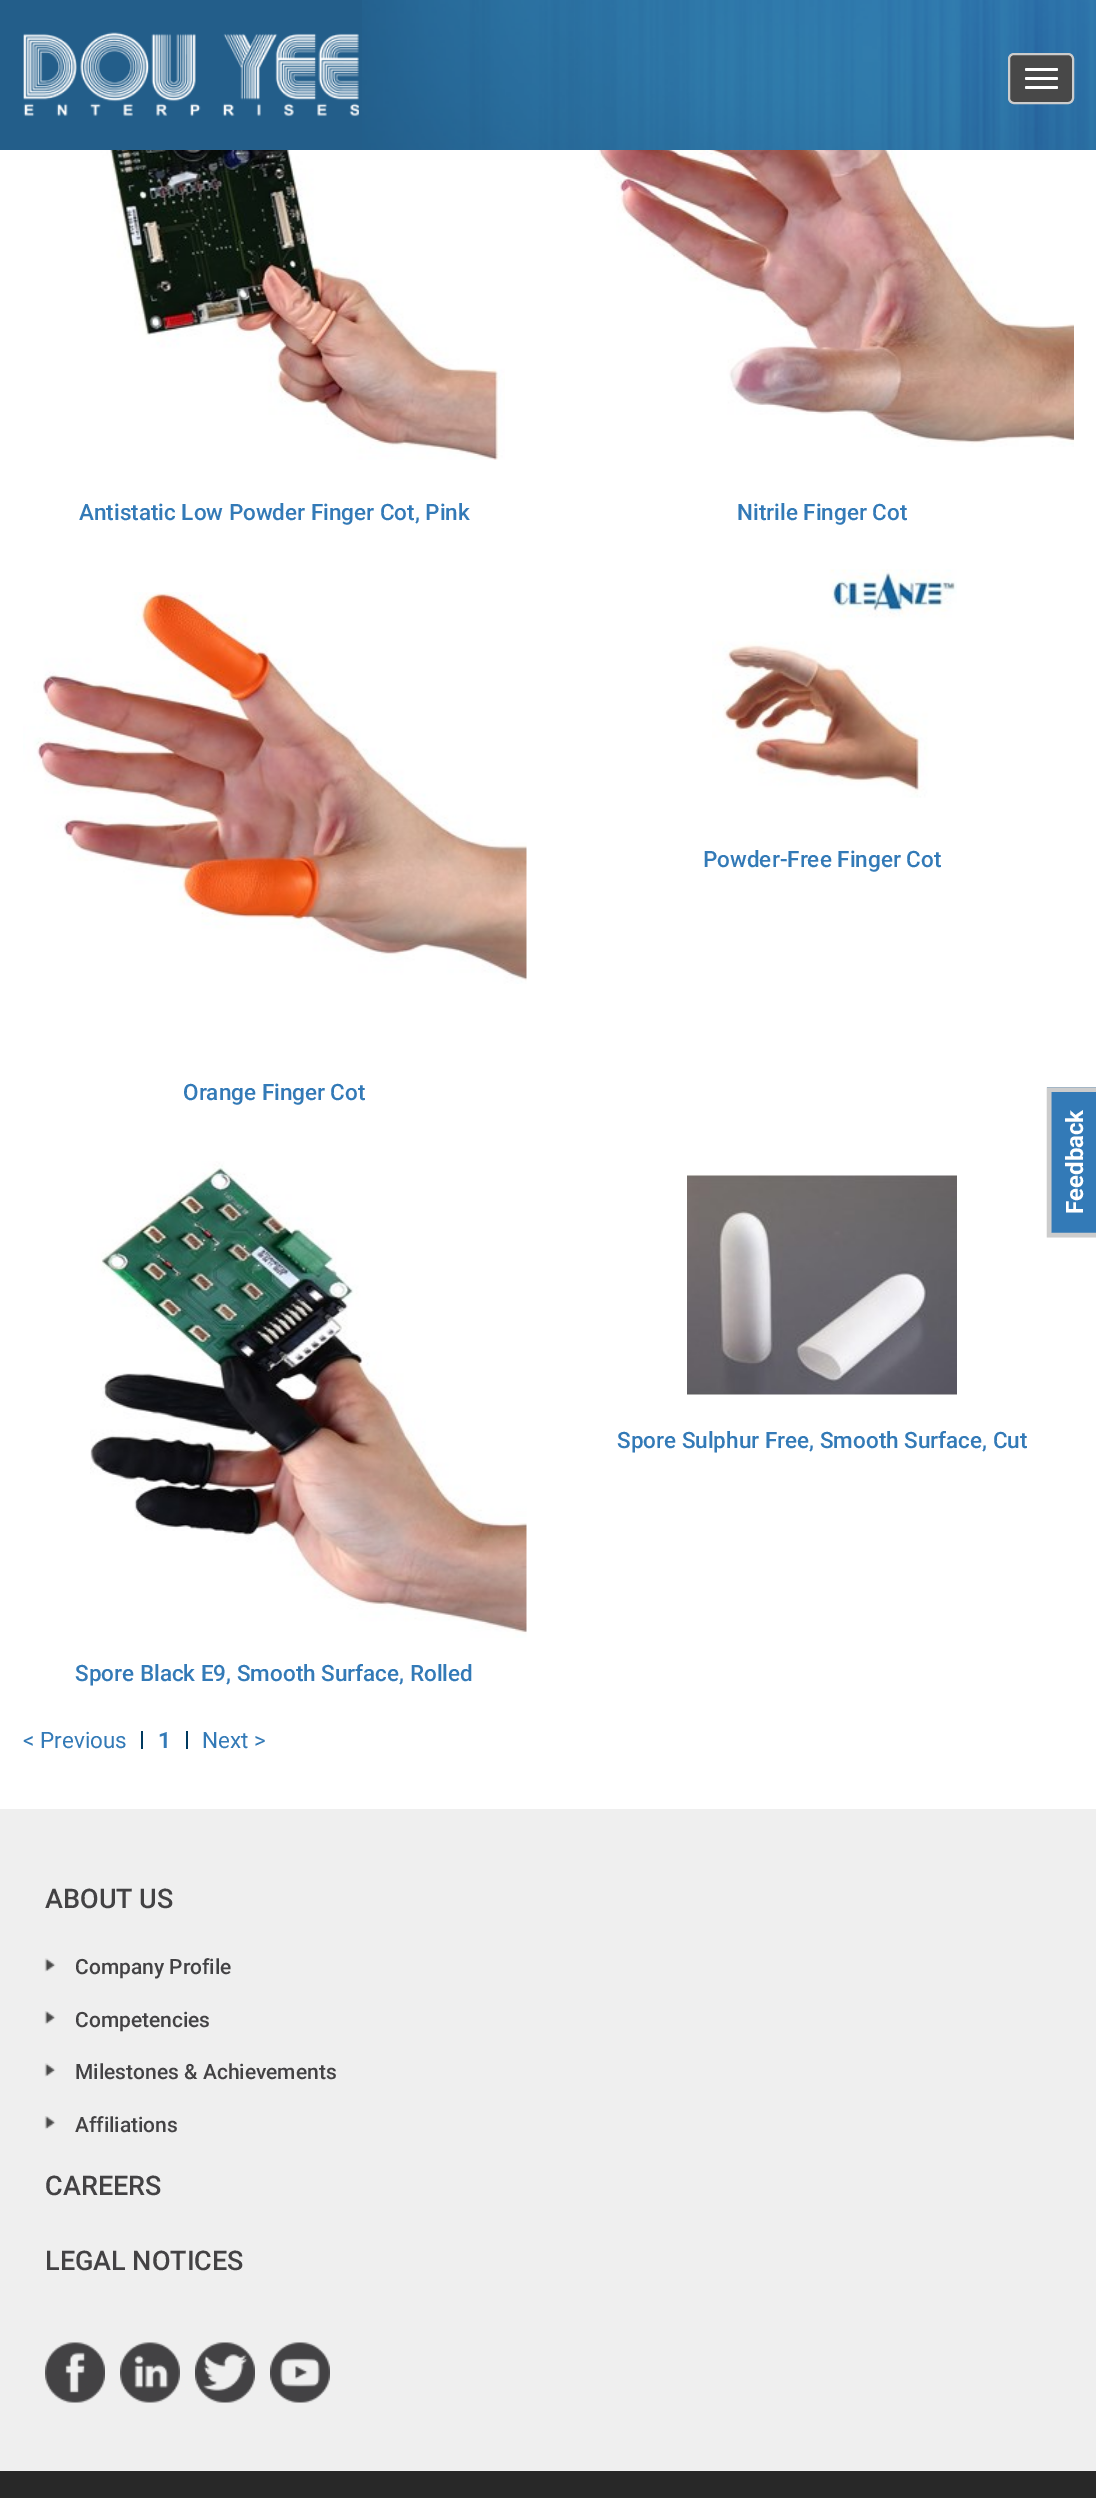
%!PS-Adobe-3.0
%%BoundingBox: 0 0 1096 2498
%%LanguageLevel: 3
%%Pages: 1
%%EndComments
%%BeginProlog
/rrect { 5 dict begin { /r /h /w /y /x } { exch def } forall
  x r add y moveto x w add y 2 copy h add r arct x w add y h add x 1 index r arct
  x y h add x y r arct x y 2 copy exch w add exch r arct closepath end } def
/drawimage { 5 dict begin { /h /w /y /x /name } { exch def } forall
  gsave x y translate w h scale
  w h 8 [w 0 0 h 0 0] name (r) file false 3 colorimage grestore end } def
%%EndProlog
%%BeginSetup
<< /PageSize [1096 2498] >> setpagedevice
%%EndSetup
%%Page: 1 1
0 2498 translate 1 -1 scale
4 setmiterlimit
1 setgray
0 0 1096 2498 rectfill
0.137 0.369 0.541 setrgbcolor
0 0 362 150 rectfill
(images/1.raw) 362 0 734 150 drawimage
(images/2.raw) 23 32 336 85 drawimage
0.282 setgray
1009 54 64 49 5 rrect gsave fill grestore
0.8 setgray
2 setlinewidth
stroke
1 setgray
1025 68 33 3 1.5 rrect fill
1025 77 33 3 1.5 rrect fill
1025 86 33 3 1.5 rrect fill
(images/3.raw) 86 150 419 310 drawimage
(images/4.raw) 594 150 480 297 drawimage
(images/5.raw) 712 569 245 229 drawimage
(images/6.raw) 23 592 504 392 drawimage
(images/7.raw) 687 1174 270 221 drawimage
(images/8.raw) 90 1161 437 477 drawimage
0 0.224 0.373 setrgbcolor
141 1731 2 18 rectfill
186 1731 2 18 rectfill
0.2 0.478 0.718 setrgbcolor
1047 1087 49 146 rectfill
0.8 setgray
4.5 setlinewidth
newpath 1049 1235 moveto 1049 1089.5 lineto 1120 1089.5 lineto 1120 1235 lineto closepath stroke
0.937 setgray
0 1809 1096 662 rectfill
(images/9.raw) 44 1958 12 14 drawimage
(images/10.raw) 44 2011 12 14 drawimage
(images/9.raw) 44 2063 12 14 drawimage
(images/10.raw) 44 2116 12 14 drawimage
(images/11.raw) 45 2342 60 61 drawimage
(images/12.raw) 120 2342 60 61 drawimage
(images/13.raw) 195 2342 60 61 drawimage
(images/14.raw) 270 2342 60 61 drawimage
0.157 setgray
0 2471 1096 27 rectfill
/Roboto-Medium [22.5 0 0 -22.5 0 0] selectfont
0.2 0.478 0.718 setrgbcolor
79 520 moveto (Antistatic Low Powder Finger Cot, Pink) show
737 520 moveto (Nitrile Finger Cot) show
703 867 moveto (Powder-Free Finger Cot) show
183 1100 moveto (Orange Finger Cot) show
617 1448 moveto (Spore Sulphur Free, Smooth Surface, Cut) show
75 1681 moveto (Spore Black E9, Smooth Surface, Rolled) show
/Roboto-Regular [22.5 0 0 -22.5 0 0] selectfont
23 1748 moveto (< Previous) show
/Roboto-Bold [22.5 0 0 -22.5 0 0] selectfont
158 1748 moveto (1) show
/Roboto-Regular [22.5 0 0 -22.5 0 0] selectfont
202 1748 moveto (Next >) show
/Roboto-Bold [24 0 0 -24 0 0] selectfont
1 setgray
gsave 1083 1214 translate -90 rotate 0 0 moveto (Feedback) show grestore
/Roboto-Medium [27 0 0 -27 0 0] selectfont
0.263 0.259 0.267 setrgbcolor
45 1908 moveto (ABOUT US) show
/Roboto-Medium [21 0 0 -21 0 0] selectfont
75 1974 moveto (Company Profile) show
75 2027 moveto (Competencies) show
75 2079 moveto (Milestones & Achievements) show
75 2132 moveto (Affiliations) show
/Roboto-Medium [27 0 0 -27 0 0] selectfont
45 2195 moveto (CAREERS) show
45 2270 moveto (LEGAL NOTICES) show
showpage
%%EOF
